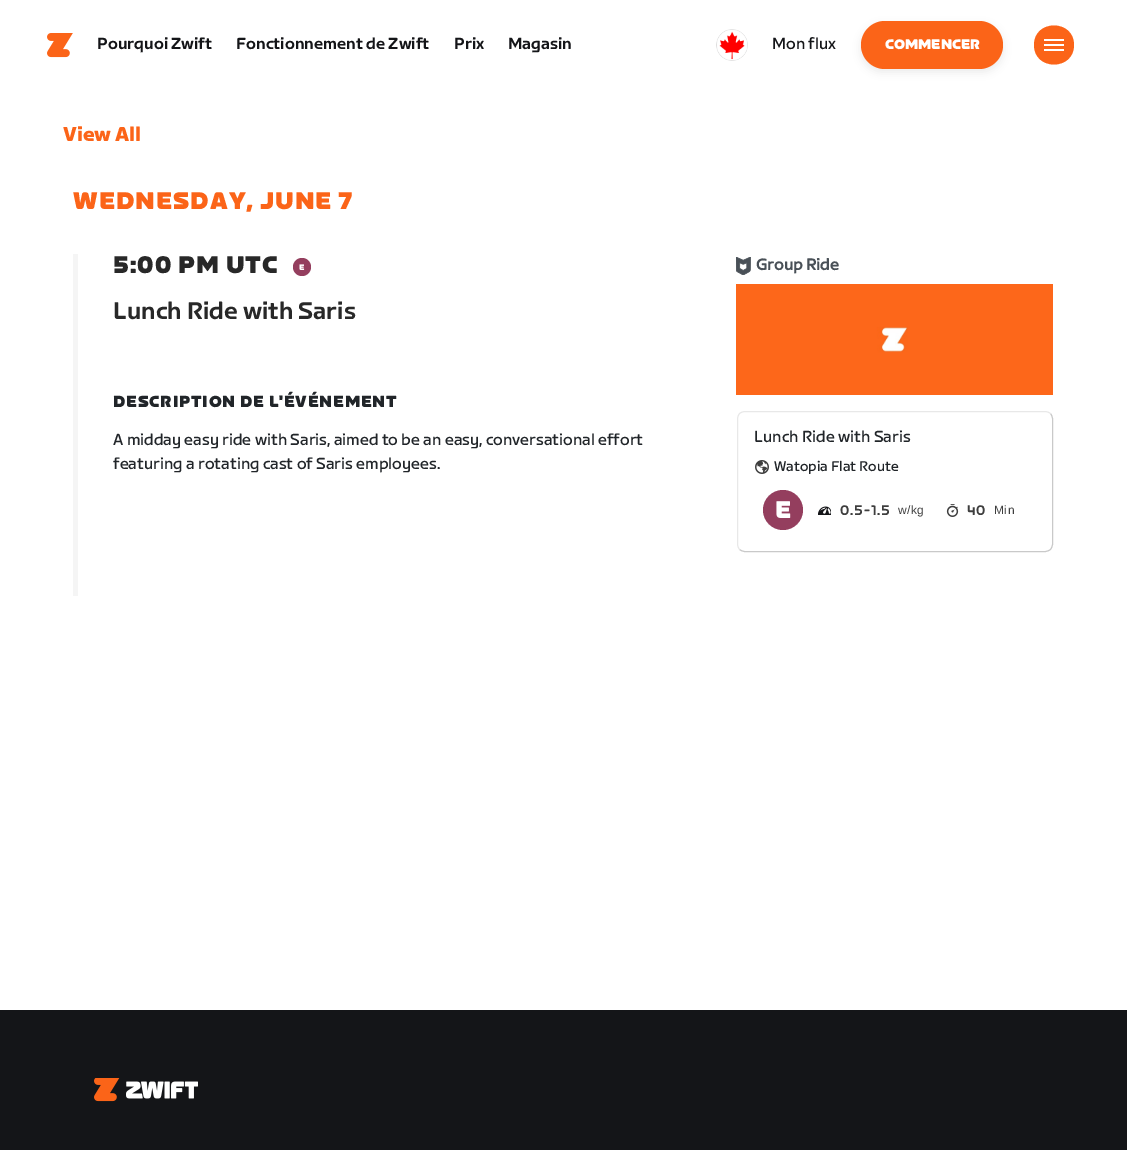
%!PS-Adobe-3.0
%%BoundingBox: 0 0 1127 1150
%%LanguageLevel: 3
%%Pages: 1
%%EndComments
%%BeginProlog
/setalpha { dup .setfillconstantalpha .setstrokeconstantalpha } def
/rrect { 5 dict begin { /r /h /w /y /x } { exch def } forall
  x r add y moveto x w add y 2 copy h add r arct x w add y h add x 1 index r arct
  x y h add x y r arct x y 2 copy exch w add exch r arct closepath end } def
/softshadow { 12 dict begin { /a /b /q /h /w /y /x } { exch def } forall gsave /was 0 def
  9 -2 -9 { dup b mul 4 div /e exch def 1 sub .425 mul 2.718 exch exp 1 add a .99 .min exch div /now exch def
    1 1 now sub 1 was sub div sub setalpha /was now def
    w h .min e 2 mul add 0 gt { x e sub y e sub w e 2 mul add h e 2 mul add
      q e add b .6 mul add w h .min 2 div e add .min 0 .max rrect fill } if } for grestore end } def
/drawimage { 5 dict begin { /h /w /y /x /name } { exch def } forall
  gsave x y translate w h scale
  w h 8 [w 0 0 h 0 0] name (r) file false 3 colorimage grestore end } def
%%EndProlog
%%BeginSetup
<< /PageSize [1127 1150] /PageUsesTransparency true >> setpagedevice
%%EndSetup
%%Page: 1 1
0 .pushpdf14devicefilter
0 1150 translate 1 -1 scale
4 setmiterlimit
1 setgray
0 0 1127 1150 rectfill
(images/1.raw) 47 33 26 25 drawimage
(images/2.raw) 716 29 32 32 drawimage
0 setgray
861 25 142 47 23.5 4 0.08 softshadow
0.984 0.392 0.094 setrgbcolor
861 21 142 48 24 rrect fill
newpath 1034 45 moveto 1034 19 1074 19 1074 45 curveto 1074 71 1034 71 1034 45 curveto closepath fill
1 setgray
1044 39 20 2 rectfill
1044 44 20 2 rectfill
1044 49 20 2 rectfill
0.961 setgray
73 254 5 342 rectfill
0.58 0.243 0.369 setrgbcolor
newpath 302 267 9 0 360 arc closepath fill
(images/3.raw) 299 264 6 6 drawimage
(images/4.raw) 736 257 15 18 drawimage
(images/5.raw) 736 284 317 111 drawimage
0.788 setgray
newpath 1050.5 413.5 moveto 1051.5 415 1052.5 417 1052.5 419 curveto 1052.5 544 lineto 1052.5 546 1051.5 548 1050.5 549.5 curveto 1049 550.5 1047 551.5 1045 551.5 curveto 745 551.5 lineto 743 551.5 741 550.5 739.5 549.5 curveto stroke
0.91 setgray
newpath 739.5 549.5 moveto 738.5 548 737.5 546 737.5 544 curveto 737.5 419 lineto 737.5 417 738.5 415 739.5 413.5 curveto 741 412.5 743 411.5 745 411.5 curveto 1045 411.5 lineto 1047 411.5 1049 412.5 1050.5 413.5 curveto stroke
(images/6.raw) 755 460 14 14 drawimage
0.58 0.243 0.369 setrgbcolor
newpath 783 510 20 0 360 arc closepath fill
(images/7.raw) 776 501 15 17 drawimage
(images/8.raw) 818 506 13 9 drawimage
(images/9.raw) 946 504 13 13 drawimage
0.078 0.082 0.094 setrgbcolor
0 1010 1127 140 rectfill
(images/10.raw) 94 1078 26 24 drawimage
(images/11.raw) 126 1081 72 18 drawimage
/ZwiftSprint-Medium [16 0 0 -16 0 0] selectfont
97 49 moveto (Pourquoi Zwift) show
236 49 moveto (Fonctionnement de Zwift) show
454 49 moveto (Prix) show
508 49 moveto (Magasin) show
/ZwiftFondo-Regular [16 0 0 -16 0 0] selectfont
772 49 moveto (Mon flux) show
/ZwiftSprint-Black [13.75 0 0 -13.75 0 0] selectfont
1 setgray
885 49 moveto (COMMENCER) show
/ZwiftSprint-Bold [20 0 0 -20 0 0] selectfont
0.984 0.392 0.094 setrgbcolor
63 141 moveto (View All) show
/ZwiftSprint-Black [24 0 0 -24 0 0] selectfont
73 209 moveto 1 0 (WEDNESDAY, JUNE 7) ashow
0.157 setgray
113 273 moveto 1 0 (5:00 PM UTC) ashow
/ZwiftSprint-Medium [24 0 0 -24 0 0] selectfont
113 319 moveto (Lunch Ride with Saris) show
/ZwiftFondo-Bold [16 0 0 -16 0 0] selectfont
0.286 0.314 0.341 setrgbcolor
756 270 moveto (Group Ride) show
/ZwiftSprint-Black [16 0 0 -16 0 0] selectfont
0.129 0.145 0.161 setrgbcolor
113 407 moveto 0.8 0 (DESCRIPTION DE L'ÉVÉNEMENT) ashow
/ZwiftSprint-Regular [16 0 0 -16 0 0] selectfont
113 445 moveto (A midday easy ride with Saris, aimed to be an easy, conversational effort) show
113 469 moveto (featuring a rotating cast of Saris employees.) show
754 442 moveto (Lunch Ride with Saris) show
/ZwiftSprint-Regular [14 0 0 -14 0 0] selectfont
774 471 moveto (Watopia Flat Route) show
/ZwiftSprint-Medium [14 0 0 -14 0 0] selectfont
0.243 setgray
840 515 moveto 0.8 0 (0.5) ashow
864 514 moveto 0.8 0 (-) ashow
871 515 moveto 0.8 0 (1.5) ashow
/LiberationSans-Regular [12 0 0 -12 0 0] selectfont
898 514 moveto 0.5 0 (w/kg) ashow
/ZwiftSprint-Medium [14 0 0 -14 0 0] selectfont
967 515 moveto 0.8 0 (40) ashow
/LiberationSans-Regular [12 0 0 -12 0 0] selectfont
994 514 moveto 0.5 0 (Min) ashow
.poppdf14devicefilter showpage
%%EOF
